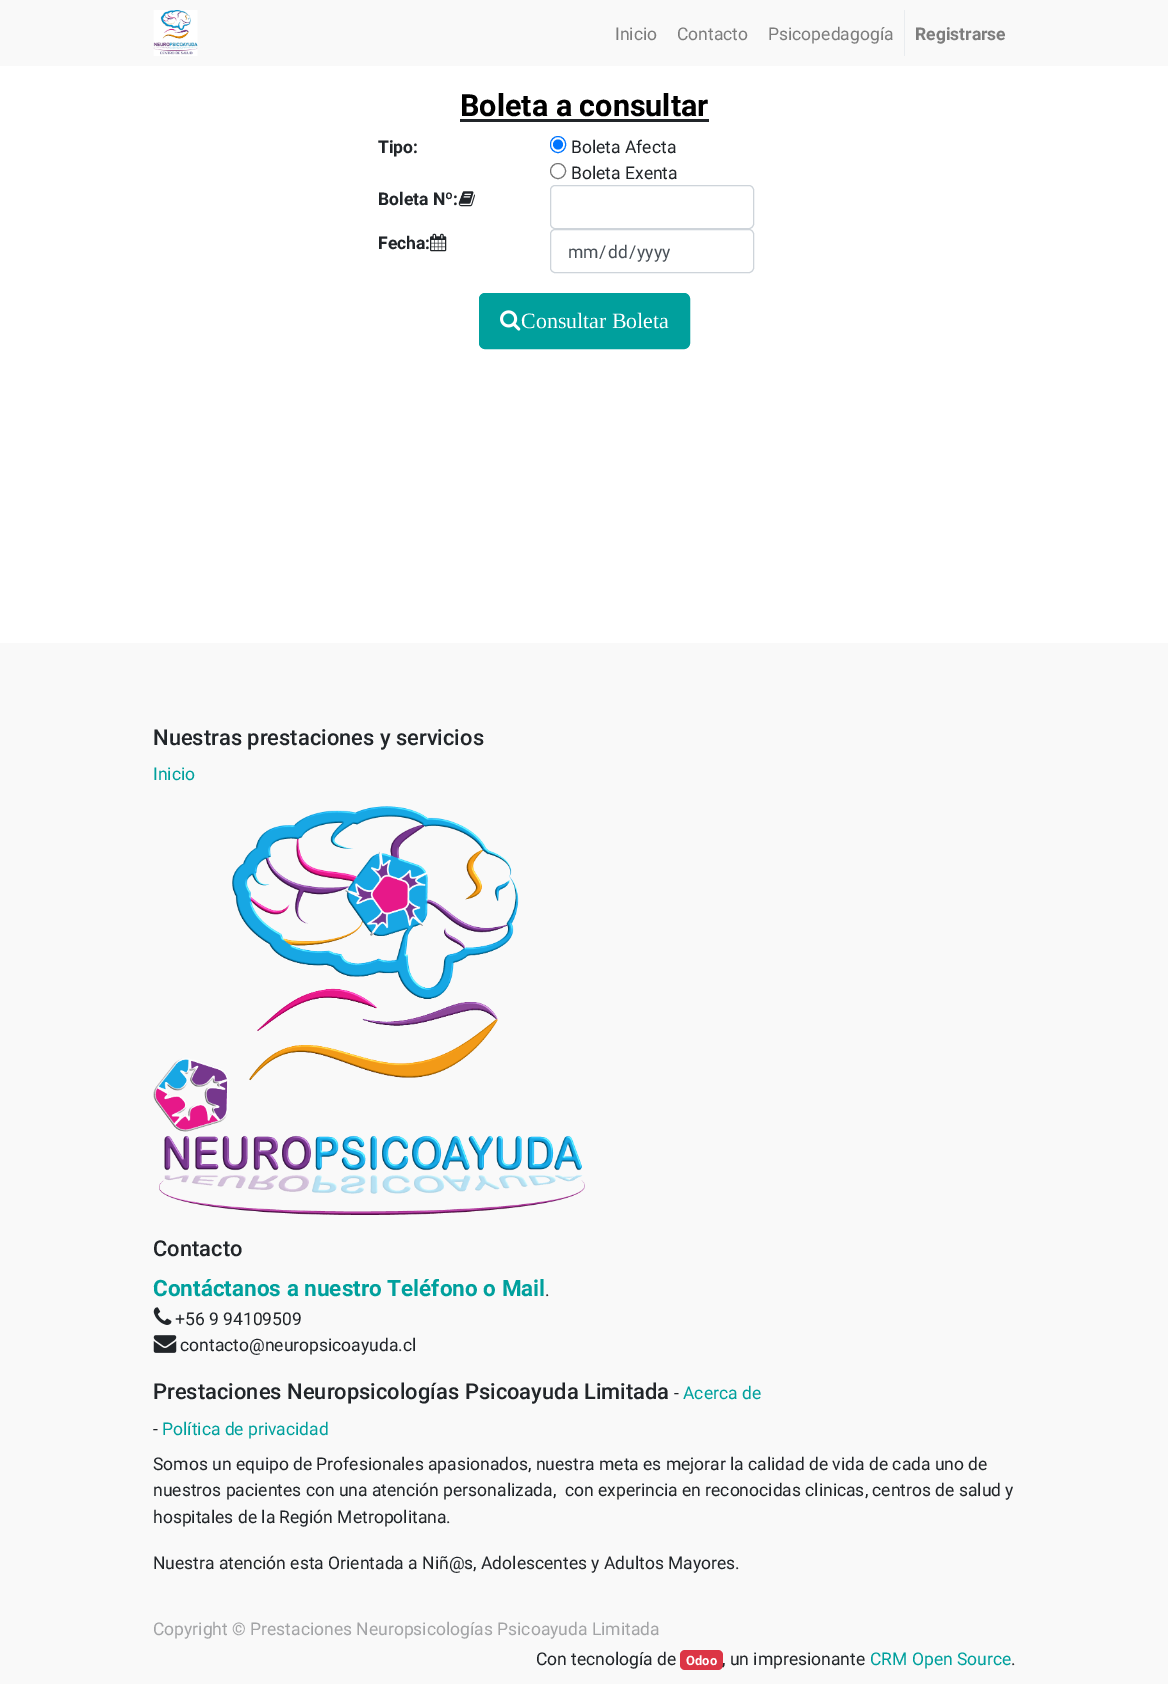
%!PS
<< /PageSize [1168 1684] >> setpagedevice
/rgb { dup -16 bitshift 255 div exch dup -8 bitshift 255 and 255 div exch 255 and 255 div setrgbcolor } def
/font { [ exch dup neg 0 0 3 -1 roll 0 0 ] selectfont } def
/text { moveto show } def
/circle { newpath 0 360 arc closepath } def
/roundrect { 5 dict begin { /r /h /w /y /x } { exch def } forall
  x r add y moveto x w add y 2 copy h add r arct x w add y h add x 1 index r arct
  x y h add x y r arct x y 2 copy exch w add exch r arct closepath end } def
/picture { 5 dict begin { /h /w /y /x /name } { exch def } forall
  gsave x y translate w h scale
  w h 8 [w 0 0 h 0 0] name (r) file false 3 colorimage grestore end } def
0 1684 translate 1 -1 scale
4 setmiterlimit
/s1 { /Roboto-Regular 17.5 font 16#7D7D7D rgb } def
/s2 { /Roboto-Bold 17.5 font 16#7D7D7D rgb } def
/s3 { /Roboto-Bold 30.5 font 16#000000 rgb } def
/s4 { /Roboto-Bold 17.5 font 16#212529 rgb } def
/s5 { /Roboto-Regular 17.5 font 16#212529 rgb } def
/s6 { /Roboto-Regular 17.5 font 16#495057 rgb } def
/s7 { /LiberationSerif-Regular 21.9 font 16#FFFFFF rgb } def
/s8 { /Roboto-Medium 21.9 font 16#212529 rgb } def
/s9 { /Roboto-Regular 17.5 font 16#00A09D rgb } def
/s10 { /Roboto-Bold 22.5 font 16#00A09D rgb } def
/s11 { /Roboto-Regular 17.5 font 16#A3A4A6 rgb } def
/s12 { /Roboto-Bold 13 font 16#FFFFFF rgb } def
16#FFFFFF rgb
0 0 1168 1684 rectfill
16#F9F9F9 rgb
0 0 1168 66 rectfill
(pic1.raw) 153 10 45 46 picture
s1
(Inicio) 615 40 text
(Contacto) 677 40 text
(Psicopedagogía) 768 40 text
16#E9ECEF rgb
904 10 1 46 rectfill
s2
(Registrarse) 915 40 text
s3
(Boleta a consultar) 460 116 text
16#212529 rgb
460 119 249 3 rectfill
s4
(Tipo:) 378 153 text
16#0075FF rgb
550.5 136.5 15 16 7.5 roundrect stroke
558 144.5 5 circle fill
s5
(Boleta Afecta) 571 153 text
16#767676 rgb
558 171 7.5 circle stroke
s5
(Boleta Exenta) 571 179 text
s4
(Boleta Nº:) 378 205 text
(pic2.raw) 458 191 17 16 picture
16#CED4DA rgb
550.5 185.5 203 43 4.5 roundrect stroke
s4
(Fecha:) 378 249 text
(pic3.raw) 430 233 17 19 picture
16#CED4DA rgb
550.5 229.5 203 43 4.5 roundrect stroke
s6
(mm) 568 258 text
(/) 599 258 text
(dd) 608 258 text
(/) 629 258 text
(yyyy) 637 258 text
16#00A09D rgb
479.5 293.5 210 55 5.5 roundrect gsave fill grestore
stroke
(pic4.raw) 500 310 21 21 picture
s7
(Consultar Boleta) 521 328 text
16#F9F9F9 rgb
0 643 1168 1041 rectfill
s8
(Nuestras prestaciones y servicios) 153 745 text
s9
(Inicio) 153 780 text
(pic5.raw) 153 806 432 409 picture
s8
(Contacto) 153 1256 text
s10
(Contáctanos a nuestro Teléfono o Mail) 153 1296 text
s5
(.) 545 1296 text
(pic6.raw) 153 1307 19 18 picture
(+56 9 94109509) 175 1325 text
(pic7.raw) 153 1335 24 18 picture
(contacto@neuropsicoayuda.cl) 180 1351 text
s8
(Prestaciones Neuropsicologías Psicoayuda Limitada) 153 1399 text
s5
(-) 674 1399 text
s9
(Acerca de) 683 1399 text
s5
(-) 153 1435 text
s9
(Política de privacidad) 162 1435 text
s5
(Somos un equipo de Profesionales apasionados, nuestra meta es mejorar la calidad de vida de cada uno de) 153 1470 text
(nuestros pacientes con una atención personalizada,  con experincia en reconocidas clinicas, centros de salud y) 153 1496 text
(hospitales de la Región Metropolitana.) 153 1523 text
(Nuestra atención esta Orientada a Niñ@s, Adolescentes y Adultos Mayores.) 153 1569 text
s11
(Copyright © Prestaciones Neuropsicologías Psicoayuda Limitada) 153 1635 text
s5
(Con tecnología de) 536 1665 text
16#DC3545 rgb
680 1650 43 20 5 roundrect fill
s12
(Odoo) 686 1665 text
s5
(, un impresionante) 722 1665 text
s9
(CRM Open Source) 870 1665 text
s5
(.) 1011 1665 text
showpage
